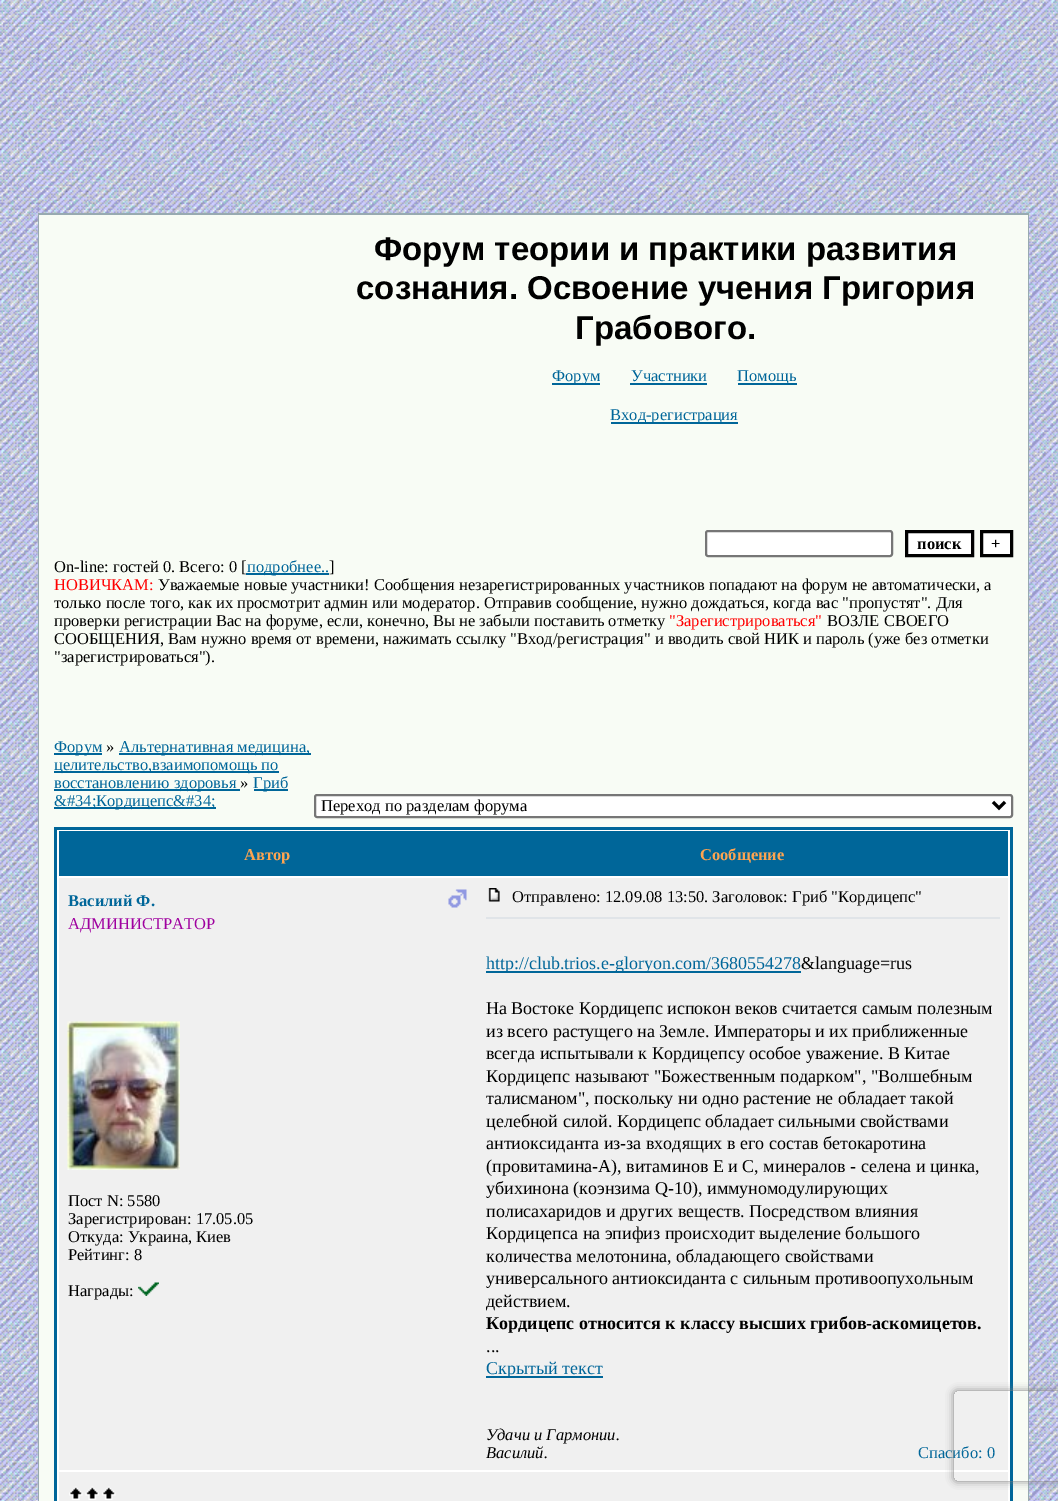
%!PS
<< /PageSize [1058 1501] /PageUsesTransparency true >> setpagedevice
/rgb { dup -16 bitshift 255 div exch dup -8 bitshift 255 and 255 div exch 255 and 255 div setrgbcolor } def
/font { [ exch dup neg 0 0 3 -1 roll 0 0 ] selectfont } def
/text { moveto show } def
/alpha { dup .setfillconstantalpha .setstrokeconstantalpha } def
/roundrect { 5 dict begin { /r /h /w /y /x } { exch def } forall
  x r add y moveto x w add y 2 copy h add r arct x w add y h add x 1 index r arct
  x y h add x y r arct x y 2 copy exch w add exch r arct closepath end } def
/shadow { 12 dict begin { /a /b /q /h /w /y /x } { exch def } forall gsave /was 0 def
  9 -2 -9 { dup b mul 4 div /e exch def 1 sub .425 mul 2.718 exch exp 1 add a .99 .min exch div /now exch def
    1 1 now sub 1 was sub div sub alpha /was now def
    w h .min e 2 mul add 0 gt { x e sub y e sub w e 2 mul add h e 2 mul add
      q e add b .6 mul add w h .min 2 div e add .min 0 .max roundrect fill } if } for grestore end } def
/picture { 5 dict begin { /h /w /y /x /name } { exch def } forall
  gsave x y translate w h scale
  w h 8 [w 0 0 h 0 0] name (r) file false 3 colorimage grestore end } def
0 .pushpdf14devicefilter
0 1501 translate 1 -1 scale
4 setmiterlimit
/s1 { /LiberationSans-Bold 33 font 16#000000 rgb } def
/s2 { /LiberationSerif-Regular 16.5 font 16#006699 rgb } def
/s3 { /LiberationSerif-Bold 16.5 font 16#000000 rgb } def
/s4 { /LiberationSerif-Regular 16.5 font 16#000000 rgb } def
/s5 { /LiberationSerif-Regular 16.5 font 16#FF0000 rgb } def
/s6 { /LiberationSerif-Bold 16.5 font 16#FFA450 rgb } def
/s7 { /LiberationSerif-Bold 16.5 font 16#006699 rgb } def
/s8 { /LiberationSerif-Regular 16.5 font 16#9F009F rgb } def
/s9 { /LiberationSerif-Regular 18 font 16#006699 rgb } def
/s10 { /LiberationSerif-Regular 18 font 16#000000 rgb } def
/s11 { /LiberationSerif-Bold 18 font 16#000000 rgb } def
/s12 { /LiberationSerif-Italic 16.5 font 16#000000 rgb } def
16#FFFFFF rgb
0 0 1058 1501 rectfill
(pic1.raw) 0 0 1058 1501 picture
16#98AAB1 rgb
38 213 991 1288 rectfill
16#F8FCF5 rgb
39 215 989 1286 rectfill
s1
(Форум теории и практики развития) 374 260 text
(сознания. Освоение учения Григория) 356 299 text
(Грабового.) 575 339 text
16#006699 rgb
552 383 48 2 rectfill
s2
(Форум) 552 381 text
(Участники) 631 381 text
630 383 77 2 rectfill
738 383 59 2 rectfill
(Помощь) 737 381 text
611 422 127 2 rectfill
(Вход-регистрация) 610 420 text
16#FFFFFF rgb
706 531 186 25 2 roundrect gsave fill grestore
16#767676 rgb
2 setlinewidth
stroke
16#FFFFFF rgb
906.5 531.5 moveto 972.5 531.5 lineto 972.5 555.5 lineto 906.5 555.5 lineto closepath gsave fill grestore
16#000000 rgb
3 setlinewidth
stroke
s3
(поиск) 917 549 text
16#FFFFFF rgb
981.5 531.5 moveto 1011.5 531.5 lineto 1011.5 555.5 lineto 981.5 555.5 lineto closepath gsave fill grestore
16#000000 rgb
stroke
(+) 991 549 text
s4
(On-line: гостей 0. Всего: 0 [) 54 572 text
16#006699 rgb
246 573 83 2 rectfill
(подробнее..) 247 572 text
s4
(]) 329 572 text
s5
(НОВИЧКАМ:) 54 590 text
s4
(Уважаемые новые участники! Сообщения незарегистрированных участников попадают на форум не автоматически, а) 158 590 text
(только после того, как их просмотрит админ или модератор. Отправив сообщение, нужно дождаться, когда вас "пропустят". Для) 54 608 text
(проверки регистрации Вас на форуме, если, конечно, Вы не забыли поставить отметку) 54 626 text
s5
("Зарегистрироваться") 669 626 text
s4
(ВОЗЛЕ СВОЕГО) 827 626 text
(СООБЩЕНИЯ, Вам нужно время от времени, нажимать ссылку "Вход/регистрация" и вводить свой НИК и пароль \(уже без отметки) 54 644 text
("зарегистрироваться"\).) 54 662 text
16#006699 rgb
54 753 48 2 rectfill
(Форум) 54 752 text
s4
(») 106 752 text
16#006699 rgb
119 753 192 2 rectfill
(Альтернативная медицина,) 119 752 text
54 771 225 2 rectfill
(целительство,взаимопомощь по) 54 770 text
54 789 186 2 rectfill
(восстановлению здоровья) 54 788 text
s4
(») 240 788 text
16#006699 rgb
254 789 34 2 rectfill
(Гриб) 253 788 text
54 807 162 2 rectfill
(&#34;Кордицепс&#34;) 54 806 text
16#FFFFFF rgb
315 795 697 22 2 roundrect gsave fill grestore
16#767676 rgb
2 setlinewidth
stroke
16#000000 rgb
3 setlinewidth
993 802 moveto 999 808 lineto 1005 802 lineto stroke
(Переход по разделам форума) 321 811 text
16#006699 rgb
54 827 959 674 rectfill
16#FFFFFF rgb
57 830 953 671 rectfill
16#006699 rgb
59 831 949 45 rectfill
s6
(Автор) 244 860 text
(Сообщение) 700 860 text
16#F0F0F0 rgb
59 878 949 592 rectfill
s7
(Василий Ф.) 68 906 text
(pic2.raw) 448 889 19 19 picture
s8
(АДМИНИСТРАТОР) 68 929 text
(pic3.raw) 67 1021 113 149 picture
s4
(Пост N: 5580) 68 1206 text
(Зарегистрирован: 17.05.05) 68 1224 text
(Откуда: Украина, Киев) 68 1242 text
(Рейтинг: 8) 68 1260 text
(Награды:) 68 1296 text
(pic4.raw) 138 1282 21 14 picture
(pic5.raw) 488 888 12 14 picture
(Отправлено: 12.09.08 13:50. Заголовок: Гриб "Кордицепс") 512 902 text
16#E0E4E8 rgb
486 917 514 2 rectfill
16#006699 rgb
486 971 315 2 rectfill
s9
(http://club.trios.e-gloryon.com/3680554278) 486 969 text
s10
(&language=rus) 801 969 text
(На Востоке Кордицепс испокон веков считается самым полезным) 486 1014 text
(из всего растущего на Земле. Императоры и их приближенные) 486 1037 text
(всегда испытывали к Кордицепсу особое уважение. В Китае) 486 1059 text
(Кордицепс называют "Божественным подарком", "Волшебным) 486 1082 text
(талисманом", поскольку ни одно растение не обладает такой) 486 1104 text
(целебной силой. Кордицепс обладает сильными свойствами) 486 1127 text
(антиоксиданта из-за входящих в его состав бетокаротина) 486 1149 text
(\(провитамина-А\), витаминов Е и С, минералов - селена и цинка,) 486 1172 text
(убихинона \(коэнзима Q-10\), иммуномодулирующих) 486 1194 text
(полисахаридов и других веществ. Посредством влияния) 486 1217 text
(Кордицепса на эпифиз происходит выделение большого) 486 1239 text
(количества мелотонина, обладающего свойствами) 486 1262 text
(универсального антиоксиданта с сильным противоопухольным) 486 1284 text
(действием.) 486 1307 text
s11
(Кордицепс относится к классу высших грибов-аскомицетов.) 486 1329 text
s10
(...) 486 1352 text
16#006699 rgb
486 1376 117 2 rectfill
(Скрытый текст) 486 1374 text
s12
(Удачи и Гармонии.) 486 1440 text
(Василий.) 486 1458 text
s2
(Спасибо: 0) 918 1458 text
16#F0F0F0 rgb
59 1472 949 29 rectfill
(pic6.raw) 69 1486 47 14 picture
gsave
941 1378 moveto 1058 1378 lineto 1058 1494 lineto 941 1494 lineto closepath 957 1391 moveto 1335 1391 lineto 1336.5 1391 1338 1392.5 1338 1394 curveto 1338 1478 lineto 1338 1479.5 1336.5 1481 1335 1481 curveto 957 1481 lineto 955.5 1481 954 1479.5 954 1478 curveto 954 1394 lineto 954 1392.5 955.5 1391 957 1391 curveto closepath eoclip newpath
16#808080 rgb
954 1391 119 90 3 4 1 shadow
grestore
.poppdf14devicefilter showpage
